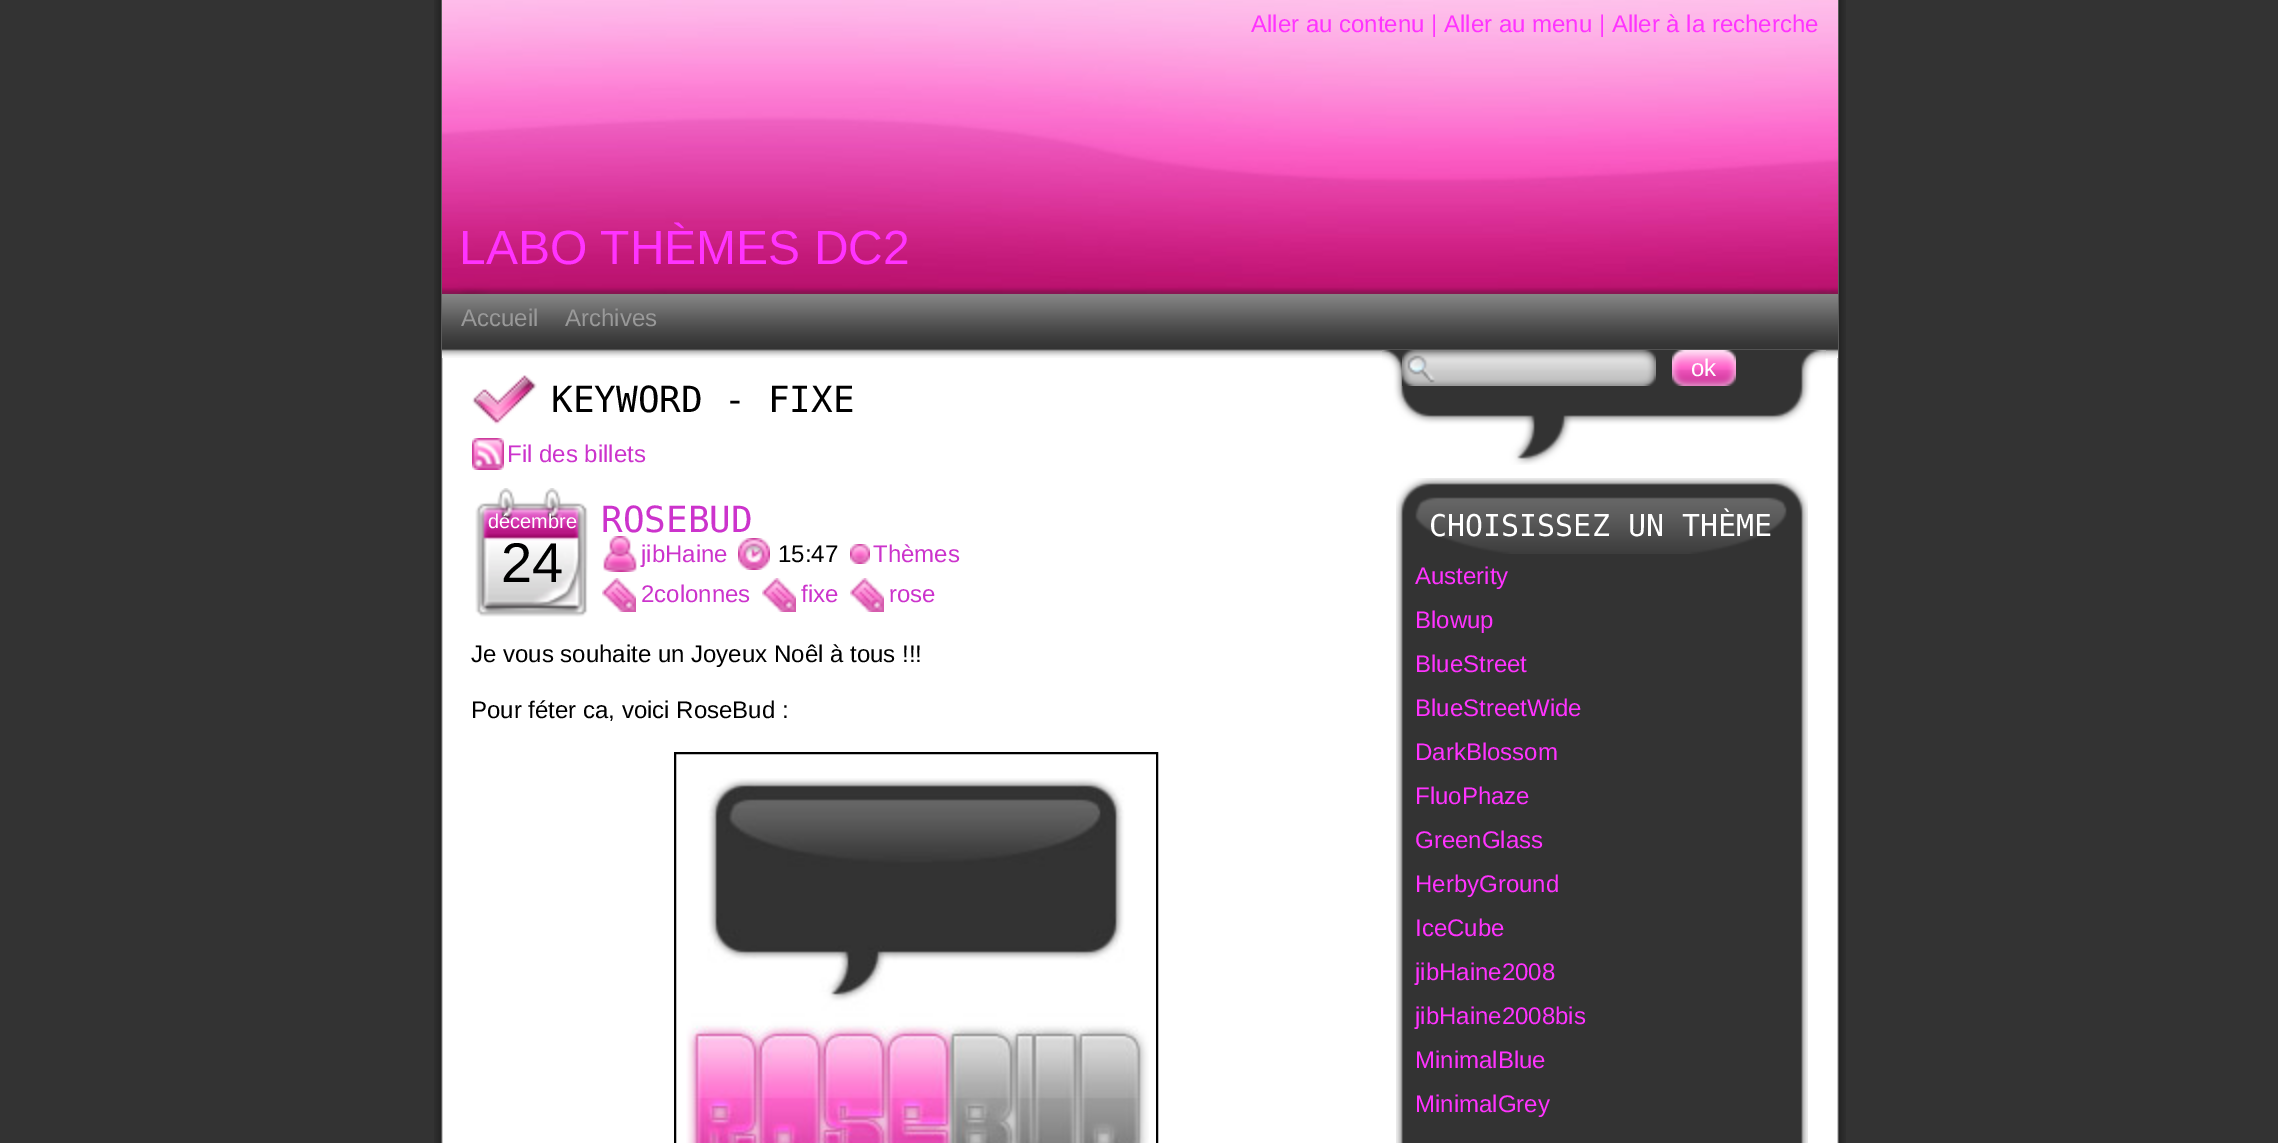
%!PS
<< /PageSize [2278 1143] >> setpagedevice
/rgb { dup -16 bitshift 255 div exch dup -8 bitshift 255 and 255 div exch 255 and 255 div setrgbcolor } def
/font { [ exch dup neg 0 0 3 -1 roll 0 0 ] selectfont } def
/text { moveto show } def
/picture { 5 dict begin { /h /w /y /x /name } { exch def } forall
  gsave x y translate w h scale
  w h 8 [w 0 0 h 0 0] name (r) file false 3 colorimage grestore end } def
0 1143 translate 1 -1 scale
4 setmiterlimit
/s1 { /LiberationSans-Regular 24 font 16#FF33FF rgb } def
/s2 { /LiberationSans-Regular 48 font 16#FF33FF rgb } def
/s3 { /LiberationSans-Regular 24 font 16#999999 rgb } def
/s4 { /DejaVuSansMono-Regular 36 font 16#000000 rgb } def
/s5 { /LiberationSans-Regular 24 font 16#CC33CC rgb } def
/s6 { /LiberationSans-Regular 20 font 16#FFFFFF rgb } def
/s7 { /LiberationSans-Regular 56 font 16#000000 rgb } def
/s8 { /DejaVuSansMono-Regular 36 font 16#CC33CC rgb } def
/s9 { /LiberationSans-Regular 24 font 16#000000 rgb } def
/s10 { /LiberationSans-Regular 24 font 16#FFFFFF rgb } def
/s11 { /DejaVuSansMono-Regular 30 font 16#FFFFFF rgb } def
16#333333 rgb
0 0 2278 1143 rectfill
(pic1.raw) 434 0 1412 1143 picture
(pic2.raw) 442 0 1396 294 picture
s1
(Aller au contenu | Aller au menu | Aller à la recherche) 1251 32 text
s2
(LABO THÈMES DC2) 459 264 text
(pic3.raw) 442 294 1396 64 picture
s3
(Accueil) 461 326 text
(Archives) 565 326 text
(pic4.raw) 472 375 65 50 picture
s4
(KEYWORD - FIXE) 551 412 text
(pic5.raw) 472 438 32 32 picture
s5
(Fil des billets) 507 462 text
(pic6.raw) 475 488 113 129 picture
s6
(décembre) 488 528 text
s7
(24) 501 582 text
s8
(ROSEBUD) 601 532 text
(pic7.raw) 603 536 34 36 picture
s5
(jibHaine) 641 562 text
(pic8.raw) 738 538 32 32 picture
s9
(15:47) 778 562 text
(pic9.raw) 850 544 20 20 picture
s5
(Thèmes) 873 562 text
(pic10.raw) 602 578 34 34 picture
(2colonnes) 641 602 text
(pic10.raw) 762 578 34 34 picture
(fixe) 801 602 text
(pic10.raw) 850 578 34 34 picture
(rose) 889 602 text
s9
(Je vous souhaite un Joyeux Noêl à tous !!!) 471 662 text
(Pour féter ca, voici RoseBud :) 471 718 text
2 setlinewidth
675 753 482 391 rectstroke
(pic11.raw) 686 778 463 365 picture
(pic12.raw) 1396 554 412 589 picture
(pic13.raw) 1382 350 444 115 picture
(pic14.raw) 1402 350 254 36 picture
(pic15.raw) 1672 350 64 36 picture
s10
(ok) 1691 376 text
(pic16.raw) 1396 478 412 76 picture
s11
(CHOISISSEZ UN THÈME) 1429 536 text
s1
(Austerity) 1415 584 text
(Blowup) 1415 628 text
(BlueStreet) 1415 672 text
(BlueStreetWide) 1415 716 text
(DarkBlossom) 1415 760 text
(FluoPhaze) 1415 804 text
(GreenGlass) 1415 848 text
(HerbyGround) 1415 892 text
(IceCube) 1415 936 text
(jibHaine2008) 1415 980 text
(jibHaine2008bis) 1415 1024 text
(MinimalBlue) 1415 1068 text
(MinimalGrey) 1415 1112 text
showpage
